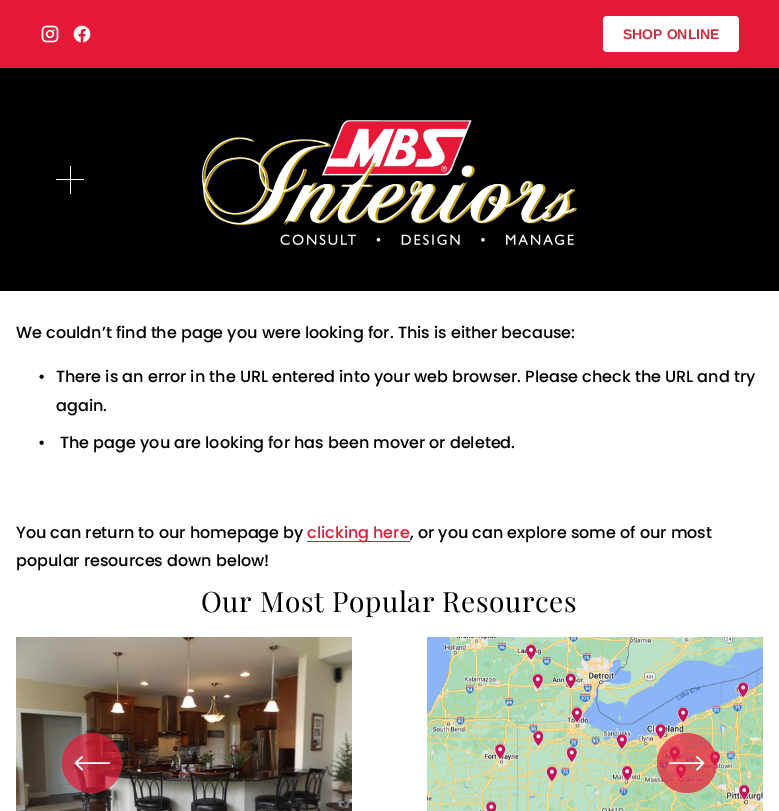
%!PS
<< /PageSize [779 811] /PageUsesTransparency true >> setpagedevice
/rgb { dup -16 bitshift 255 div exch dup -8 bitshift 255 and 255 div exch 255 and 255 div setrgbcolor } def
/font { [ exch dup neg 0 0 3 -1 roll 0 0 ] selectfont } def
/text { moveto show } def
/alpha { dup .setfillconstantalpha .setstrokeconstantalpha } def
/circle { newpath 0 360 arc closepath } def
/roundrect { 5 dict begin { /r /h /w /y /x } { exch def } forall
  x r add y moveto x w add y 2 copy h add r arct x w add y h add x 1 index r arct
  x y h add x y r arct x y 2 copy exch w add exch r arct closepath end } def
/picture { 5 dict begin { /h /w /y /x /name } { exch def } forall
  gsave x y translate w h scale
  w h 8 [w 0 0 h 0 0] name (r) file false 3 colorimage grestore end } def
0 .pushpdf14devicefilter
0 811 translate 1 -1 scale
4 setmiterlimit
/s1 { /LiberationSans-Bold 14 font 16#CC2F3E rgb } def
/s2 { /Poppins-Medium 16 font 16#000000 rgb } def
/s3 { /Poppins-Medium 16 font 16#E51937 rgb } def
16#FFFFFF rgb
0 0 779 811 rectfill
16#E51937 rgb
0 0 779 68 rectfill
(pic1.raw) 41 25 18 18 picture
(pic2.raw) 73 25 18 18 picture
16#FFFFFF rgb
603 16 136 36 4 roundrect fill
s1
(SHOP ONLINE) 623 39 text
16#000000 rgb
0 68 779 223 rectfill
16#FFFFFF rgb
56 179 28 1 rectfill
70 166 1 28 rectfill
(pic3.raw) 202 120 375 125 picture
s2
(We couldn’t find the page you were looking for. This is either because:) 16 338 text
(•) 38 382 text
(There is an error in the URL entered into your web browser. Please check the URL and try) 56 382 text
(again.) 56 411 text
(•) 38 448 text
(The page you are looking for has been mover or deleted.) 60 448 text
(You can return to our homepage by) 16 538 text
16#E51937 rgb
307 541 103 1 rectfill
(clicking here) 307 538 text
s2
(, or you can explore some of our most) 410 538 text
(popular resources down below!) 16 566 text
/PlayfairDisplay-Regular 28.1 font
201 612 moveto 0.55 0 (Our Most Popular Resources) ashow
(pic4.raw) 16 637 336 174 picture
(pic5.raw) 427 637 336 174 picture
0.7 alpha
16#E51937 rgb
92 763 30 circle fill
1 alpha
16#FFFFFF rgb
1.6 setlinewidth
1 setlinecap
1 setlinejoin
82 769.5 moveto 75.5 763 lineto 82 757 lineto 109 763 moveto 77 763 lineto stroke
0.7 alpha
16#E51937 rgb
687 763 30 circle fill
1 alpha
16#FFFFFF rgb
697 757 moveto 703.5 763 lineto 697 769.5 lineto 670 763 moveto 702.5 763 lineto stroke
.poppdf14devicefilter showpage
